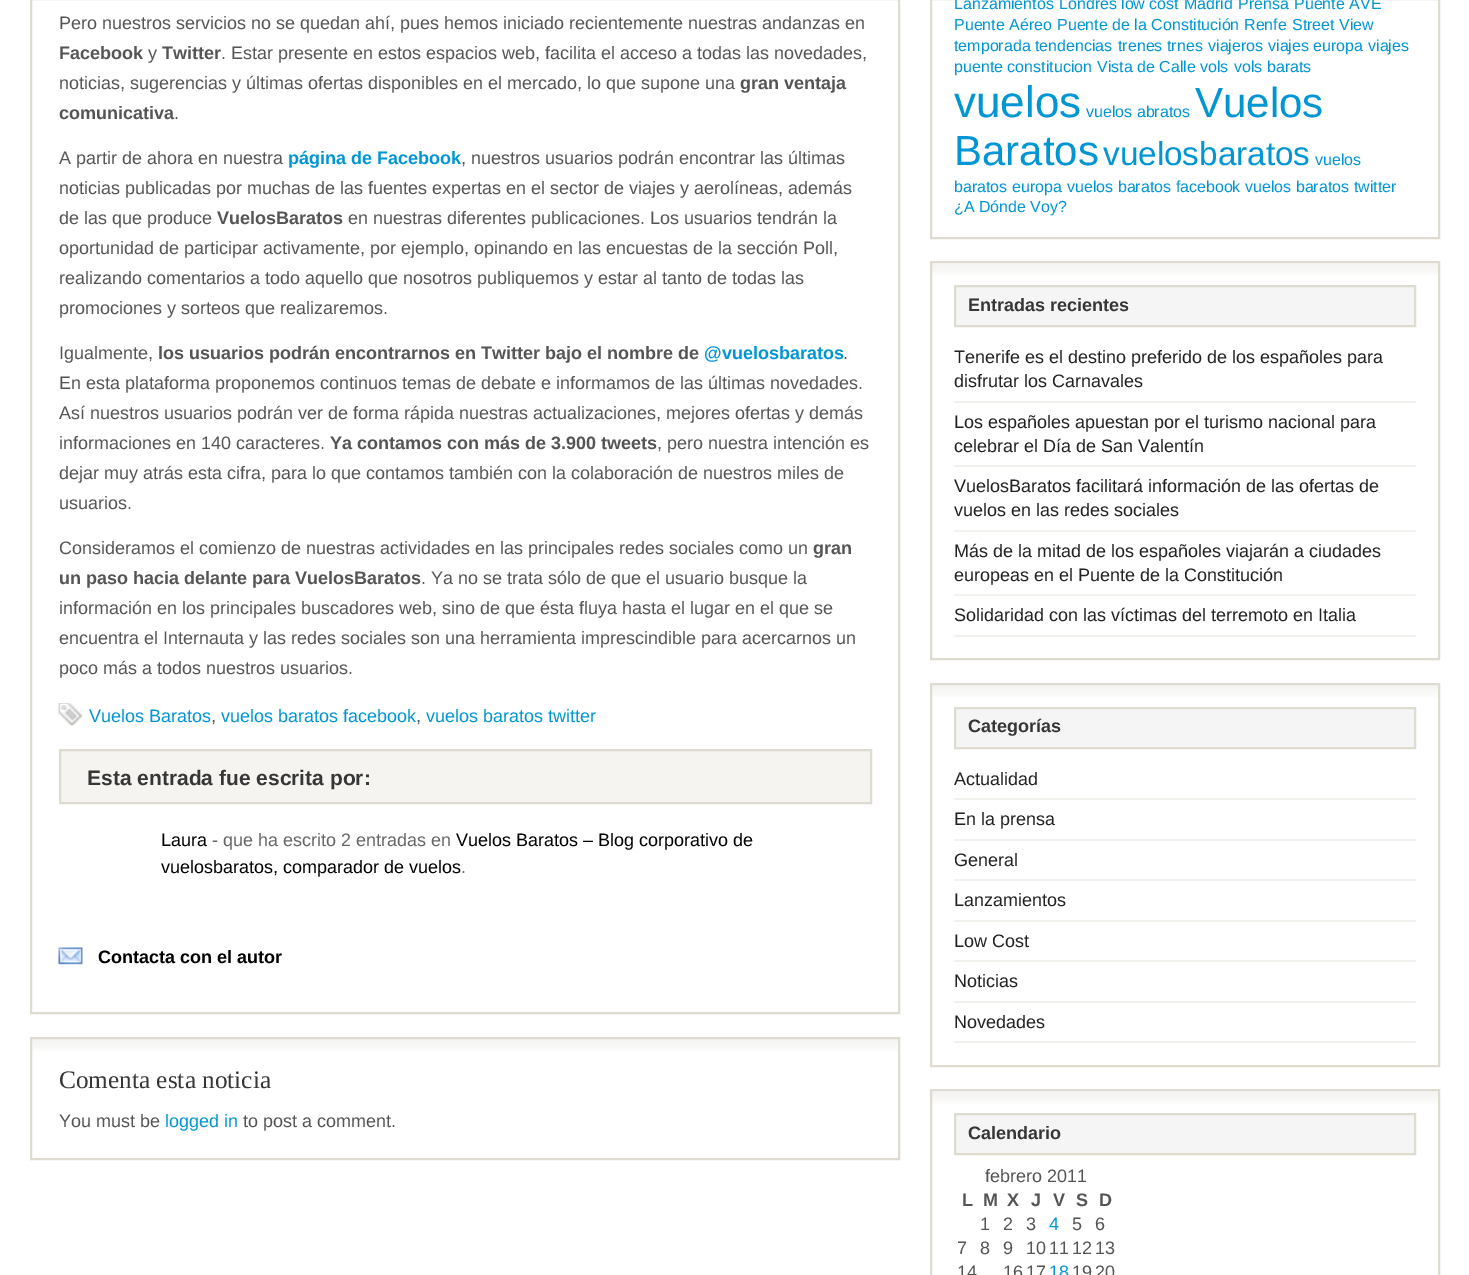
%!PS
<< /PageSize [1469 1275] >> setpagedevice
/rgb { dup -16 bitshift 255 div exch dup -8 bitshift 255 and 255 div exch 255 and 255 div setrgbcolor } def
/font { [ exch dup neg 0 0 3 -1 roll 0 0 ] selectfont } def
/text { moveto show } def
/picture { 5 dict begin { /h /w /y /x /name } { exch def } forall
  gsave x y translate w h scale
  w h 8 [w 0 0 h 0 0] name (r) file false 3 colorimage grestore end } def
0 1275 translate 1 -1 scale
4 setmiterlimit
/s1 { /LiberationSans-Regular 18 font 16#555555 rgb } def
/s2 { /LiberationSans-Bold 18 font 16#555555 rgb } def
/s3 { /LiberationSans-Bold 18 font 16#0095D3 rgb } def
/s4 { /LiberationSans-Regular 18 font 16#0095D3 rgb } def
/s5 { /LiberationSans-Bold 21 font 16#363636 rgb } def
/s6 { /LiberationSans-Regular 18 font 16#000000 rgb } def
/s7 { /LiberationSans-Regular 18 font 16#666666 rgb } def
/s8 { /LiberationSans-Bold 18 font 16#000000 rgb } def
/s9 { /LiberationSerif-Regular 25.25 font 16#363636 rgb } def
/s10 { /LiberationSans-Regular 16 font 16#0095D3 rgb } def
/s11 { /LiberationSans-Regular 44 font 16#0095D3 rgb } def
/s12 { /LiberationSans-Regular 42 font 16#0095D3 rgb } def
/s13 { /LiberationSans-Regular 33.25 font 16#0095D3 rgb } def
/s14 { /LiberationSans-Bold 18 font 16#363636 rgb } def
/s15 { /LiberationSans-Regular 18 font 16#222222 rgb } def
16#FFFFFF rgb
0 0 1469 1275 rectfill
16#DEDBD1 rgb
2 setlinewidth
31 -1 868 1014 rectstroke
s1
(Pero nuestros servicios no se quedan ahí, pues hemos iniciado recientemente nuestras andanzas en) 59 29 text
s2
(Facebook) 59 59 text
s1
(y) 148 59 text
s2
(Twitter) 162 59 text
s1
(. Estar presente en estos espacios web, facilita el acceso a todas las novedades,) 221 59 text
(noticias, sugerencias y últimas ofertas disponibles en el mercado, lo que supone una) 59 89 text
s2
(gran ventaja) 740 89 text
(comunicativa) 59 119 text
s1
(.) 174 119 text
(A partir de ahora en nuestra) 59 164 text
s3
(página de Facebook) 288 164 text
s1
(, nuestros usuarios podrán encontrar las últimas) 461 164 text
(noticias publicadas por muchas de las fuentes expertas en el sector de viajes y aerolíneas, además) 59 194 text
(de las que produce) 59 224 text
s2
(VuelosBaratos) 217 224 text
s1
(en nuestras diferentes publicaciones. Los usuarios tendrán la) 348 224 text
(oportunidad de participar activamente, por ejemplo, opinando en las encuestas de la sección Poll,) 59 254 text
(realizando comentarios a todo aquello que nosotros publiquemos y estar al tanto de todas las) 59 284 text
(promociones y sorteos que realizaremos.) 59 314 text
(Igualmente,) 59 359 text
s2
(los usuarios podrán encontrarnos en Twitter bajo el nombre de) 158 359 text
s3
(@vuelosbaratos) 704 359 text
s1
(.) 843 359 text
(En esta plataforma proponemos continuos temas de debate e informamos de las últimas novedades.) 59 389 text
(Así nuestros usuarios podrán ver de forma rápida nuestras actualizaciones, mejores ofertas y demás) 59 419 text
(informaciones en 140 caracteres.) 59 449 text
s2
(Ya contamos con más de 3.900 tweets) 330 449 text
s1
(, pero nuestra intención es) 657 449 text
(dejar muy atrás esta cifra, para lo que contamos también con la colaboración de nuestros miles de) 59 479 text
(usuarios.) 59 509 text
(Consideramos el comienzo de nuestras actividades en las principales redes sociales como un) 59 554 text
s2
(gran) 813 554 text
(un paso hacia delante para VuelosBaratos) 59 584 text
s1
(. Ya no se trata sólo de que el usuario busque la) 421 584 text
(información en los principales buscadores web, sino de que ésta fluya hasta el lugar en el que se) 59 614 text
(encuentra el Internauta y las redes sociales son una herramienta imprescindible para acercarnos un) 59 644 text
(poco más a todos nuestros usuarios.) 59 674 text
(pic1.raw) 58 703 25 23 picture
s4
(Vuelos Baratos) 89 722 text
s1
(,) 211 722 text
s4
(vuelos baratos facebook) 221 722 text
s1
(,) 416 722 text
s4
(vuelos baratos twitter) 426 722 text
16#F5F4F0 rgb
60 750 moveto 871 750 lineto 871 803 lineto 60 803 lineto closepath gsave fill grestore
16#DEDBD1 rgb
stroke
s5
(Esta entrada fue escrita por:) 87 785 text
s6
(Laura) 161 846 text
s7
(- que ha escrito 2 entradas en) 212 846 text
s6
(Vuelos Baratos – Blog corporativo de) 456 846 text
(vuelosbaratos, comparador de vuelos) 161 873 text
s7
(.) 461 873 text
(pic2.raw) 58 947 25 18 picture
s8
(Contacta con el autor) 98 963 text
(pic3.raw) 32 1039 866 12 picture
16#DEDBD1 rgb
31 1038 868 121 rectstroke
s9
(Comenta esta noticia) 59 1088 text
s1
(You must be) 59 1127 text
s4
(logged in) 165 1127 text
s1
(to post a comment.) 243 1127 text
16#DEDBD1 rgb
931 -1 508 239 rectstroke
s10
(Lanzamientos) 954 9 text
(Londres) 1059 9 text
(low cost) 1121 9 text
(Madrid) 1184 9 text
(Prensa) 1238 9 text
(Puente AVE) 1294 9 text
(Puente Aéreo) 954 30 text
(Puente de la Constitución) 1057 30 text
(Renfe) 1244 30 text
(Street View) 1292 30 text
(temporada) 954 51 text
(tendencias) 1035 51 text
(trenes) 1118 51 text
(trnes) 1167 51 text
(viajeros) 1208 51 text
(viajes europa) 1268 51 text
(viajes) 1368 51 text
(puente constitucion) 954 72 text
(Vista de Calle) 1097 72 text
(vols) 1200 72 text
(vols barats) 1234 72 text
s11
(vuelos) 954 117 text
s10
(vuelos abratos) 1086 117 text
s12
(Vuelos) 1195 117 text
(Baratos) 954 165 text
s13
(vuelosbaratos) 1103 165 text
s10
(vuelos) 1315 165 text
(baratos europa) 954 192 text
(vuelos baratos facebook) 1067 192 text
(vuelos baratos twitter) 1245 192 text
(¿A Dónde Voy?) 954 212 text
(pic4.raw) 932 263 506 13 picture
16#DEDBD1 rgb
931 262 508 397 rectstroke
16#F5F5F5 rgb
955 286 moveto 1415 286 lineto 1415 326 lineto 955 326 lineto closepath gsave fill grestore
16#DEDBD1 rgb
stroke
s14
(Entradas recientes) 968 311 text
16#F1F1ED rgb
954 401 462 2 rectfill
s15
(Tenerife es el destino preferido de los españoles para) 954 363 text
(disfrutar los Carnavales) 954 387 text
16#F1F1ED rgb
954 465 462 2 rectfill
s15
(Los españoles apuestan por el turismo nacional para) 954 428 text
(celebrar el Día de San Valentín) 954 452 text
16#F1F1ED rgb
954 530 462 2 rectfill
s15
(VuelosBaratos facilitará información de las ofertas de) 954 492 text
(vuelos en las redes sociales) 954 516 text
16#F1F1ED rgb
954 594 462 2 rectfill
s15
(Más de la mitad de los españoles viajarán a ciudades) 954 557 text
(europeas en el Puente de la Constitución) 954 581 text
16#F1F1ED rgb
954 635 462 2 rectfill
s15
(Solidaridad con las víctimas del terremoto en Italia) 954 621 text
(pic5.raw) 932 685 506 12 picture
16#DEDBD1 rgb
931 684 508 382 rectstroke
16#F5F5F5 rgb
955 708 moveto 1415 708 lineto 1415 748 lineto 955 748 lineto closepath gsave fill grestore
16#DEDBD1 rgb
stroke
s14
(Categorías) 968 732 text
16#F1F1ED rgb
954 798 462 2 rectfill
s15
(Actualidad) 954 785 text
16#F1F1ED rgb
954 839 462 2 rectfill
s15
(En la prensa) 954 825 text
16#F1F1ED rgb
954 879 462 2 rectfill
s15
(General) 954 866 text
16#F1F1ED rgb
954 920 462 2 rectfill
s15
(Lanzamientos) 954 906 text
16#F1F1ED rgb
954 960 462 2 rectfill
s15
(Low Cost) 954 947 text
16#F1F1ED rgb
954 1001 462 2 rectfill
s15
(Noticias) 954 987 text
16#F1F1ED rgb
954 1041 462 2 rectfill
s15
(Novedades) 954 1028 text
(pic4.raw) 932 1091 506 13 picture
16#DEDBD1 rgb
931 1090 508 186 rectstroke
16#F5F5F5 rgb
955 1114 moveto 1415 1114 lineto 1415 1154 lineto 955 1154 lineto closepath gsave fill grestore
16#DEDBD1 rgb
stroke
s14
(Calendario) 968 1139 text
s1
(febrero 2011) 985 1182 text
s2
(L) 962 1206 text
(M) 983 1206 text
(X) 1007 1206 text
(J) 1031 1206 text
(V) 1053 1206 text
(S) 1076 1206 text
(D) 1099 1206 text
s1
(1) 980 1230 text
(2) 1003 1230 text
(3) 1026 1230 text
s4
(4) 1049 1230 text
s1
(5) 1072 1230 text
(6) 1095 1230 text
(7) 957 1254 text
(8) 980 1254 text
(9) 1003 1254 text
(10) 1026 1254 text
(11) 1049 1254 text
(12) 1072 1254 text
(13) 1095 1254 text
(14) 957 1278 text
(16) 1003 1278 text
(17) 1026 1278 text
s4
(18) 1049 1278 text
s1
(19) 1072 1278 text
(20) 1095 1278 text
showpage
